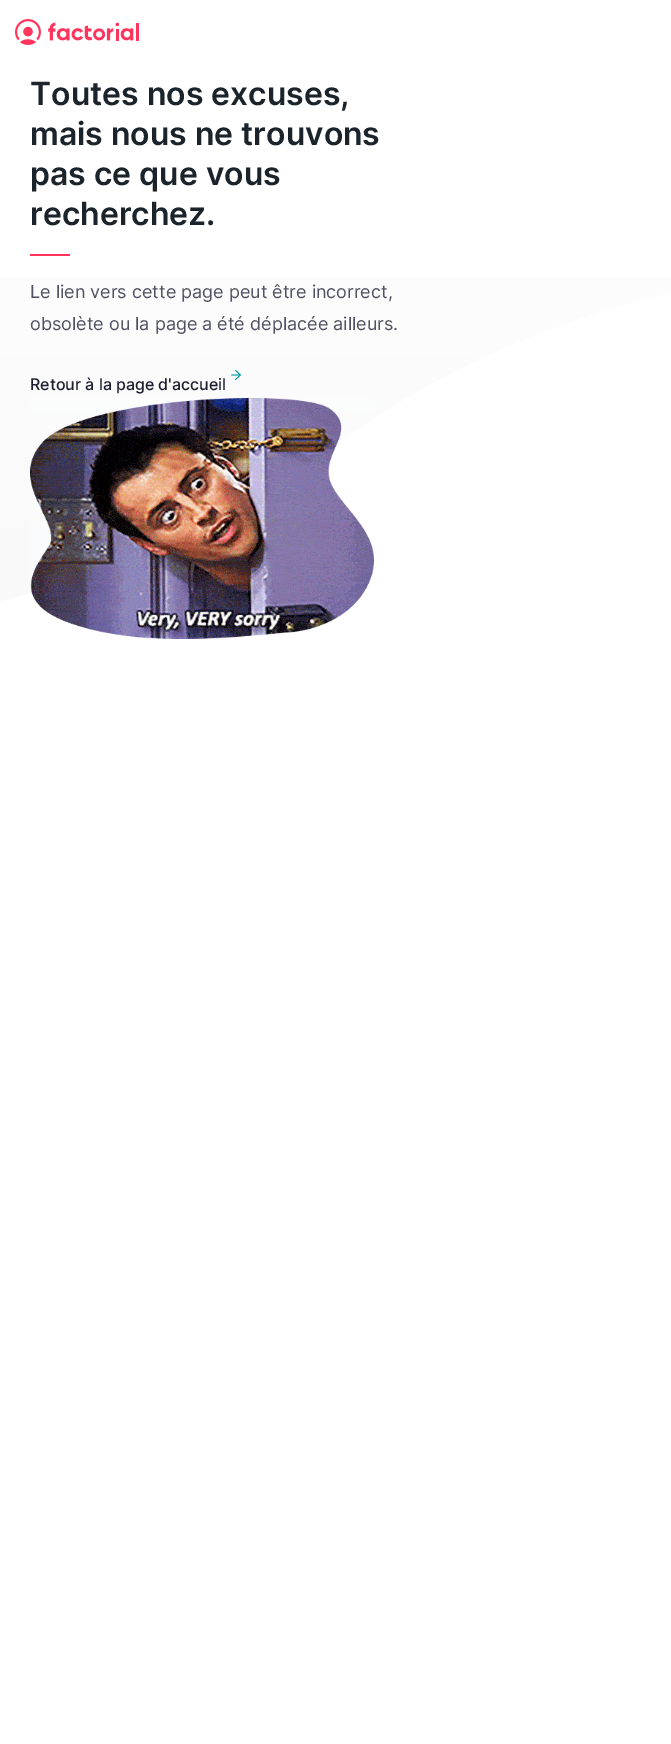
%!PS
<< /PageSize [671 1744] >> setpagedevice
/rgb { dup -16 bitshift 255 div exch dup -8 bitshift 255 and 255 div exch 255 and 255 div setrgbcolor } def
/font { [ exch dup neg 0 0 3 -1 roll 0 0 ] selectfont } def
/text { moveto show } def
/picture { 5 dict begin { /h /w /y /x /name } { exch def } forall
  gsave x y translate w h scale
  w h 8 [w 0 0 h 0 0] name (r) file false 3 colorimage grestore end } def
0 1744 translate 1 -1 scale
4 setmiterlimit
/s1 { /Inter-SemiBold 32 font 16#1C242B rgb } def
/s2 { /Inter-Regular 18 font 16#515164 rgb } def
/s3 { /Inter-Medium 16 font 16#1E1E31 rgb } def
16#FFFFFF rgb
0 0 671 1744 rectfill
(pic1.raw) 15 19 124 26 picture
gsave 0 277 moveto 671 277 lineto 671 602 lineto 0 602 lineto closepath clip newpath
<< /ShadingType 2 /ColorSpace /DeviceRGB /Coords [336 659 336 64] /Extend [true true] /Function << /FunctionType 2 /Domain [0 1] /C0 [0.973 0.976 0.98] /C1 [1 1 1] /N 1 >> >> shfill grestore
s1
(Toutes nos excuses,) 30 105 text
(mais nous ne trouvons) 30 145 text
(pas ce que vous) 30 185 text
(recherchez.) 30 225 text
16#FF355E rgb
30 254 40 2 rectfill
16#FFFFFF rgb
-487 661 moveto 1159 661 lineto 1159 281 lineto 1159 281 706 178 336 444 curveto -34 710 -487 638 -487 638 curveto closepath eofill
s2
(Le lien vers cette page peut être incorrect,) 30 298 text
(obsolète ou la page a été déplacée ailleurs.) 30 330 text
(pic2.raw) 231 370 10 10 picture
s3
(Retour à la page d'accueil) 30 390 text
(pic3.raw) 30 398 344 241 picture
showpage
